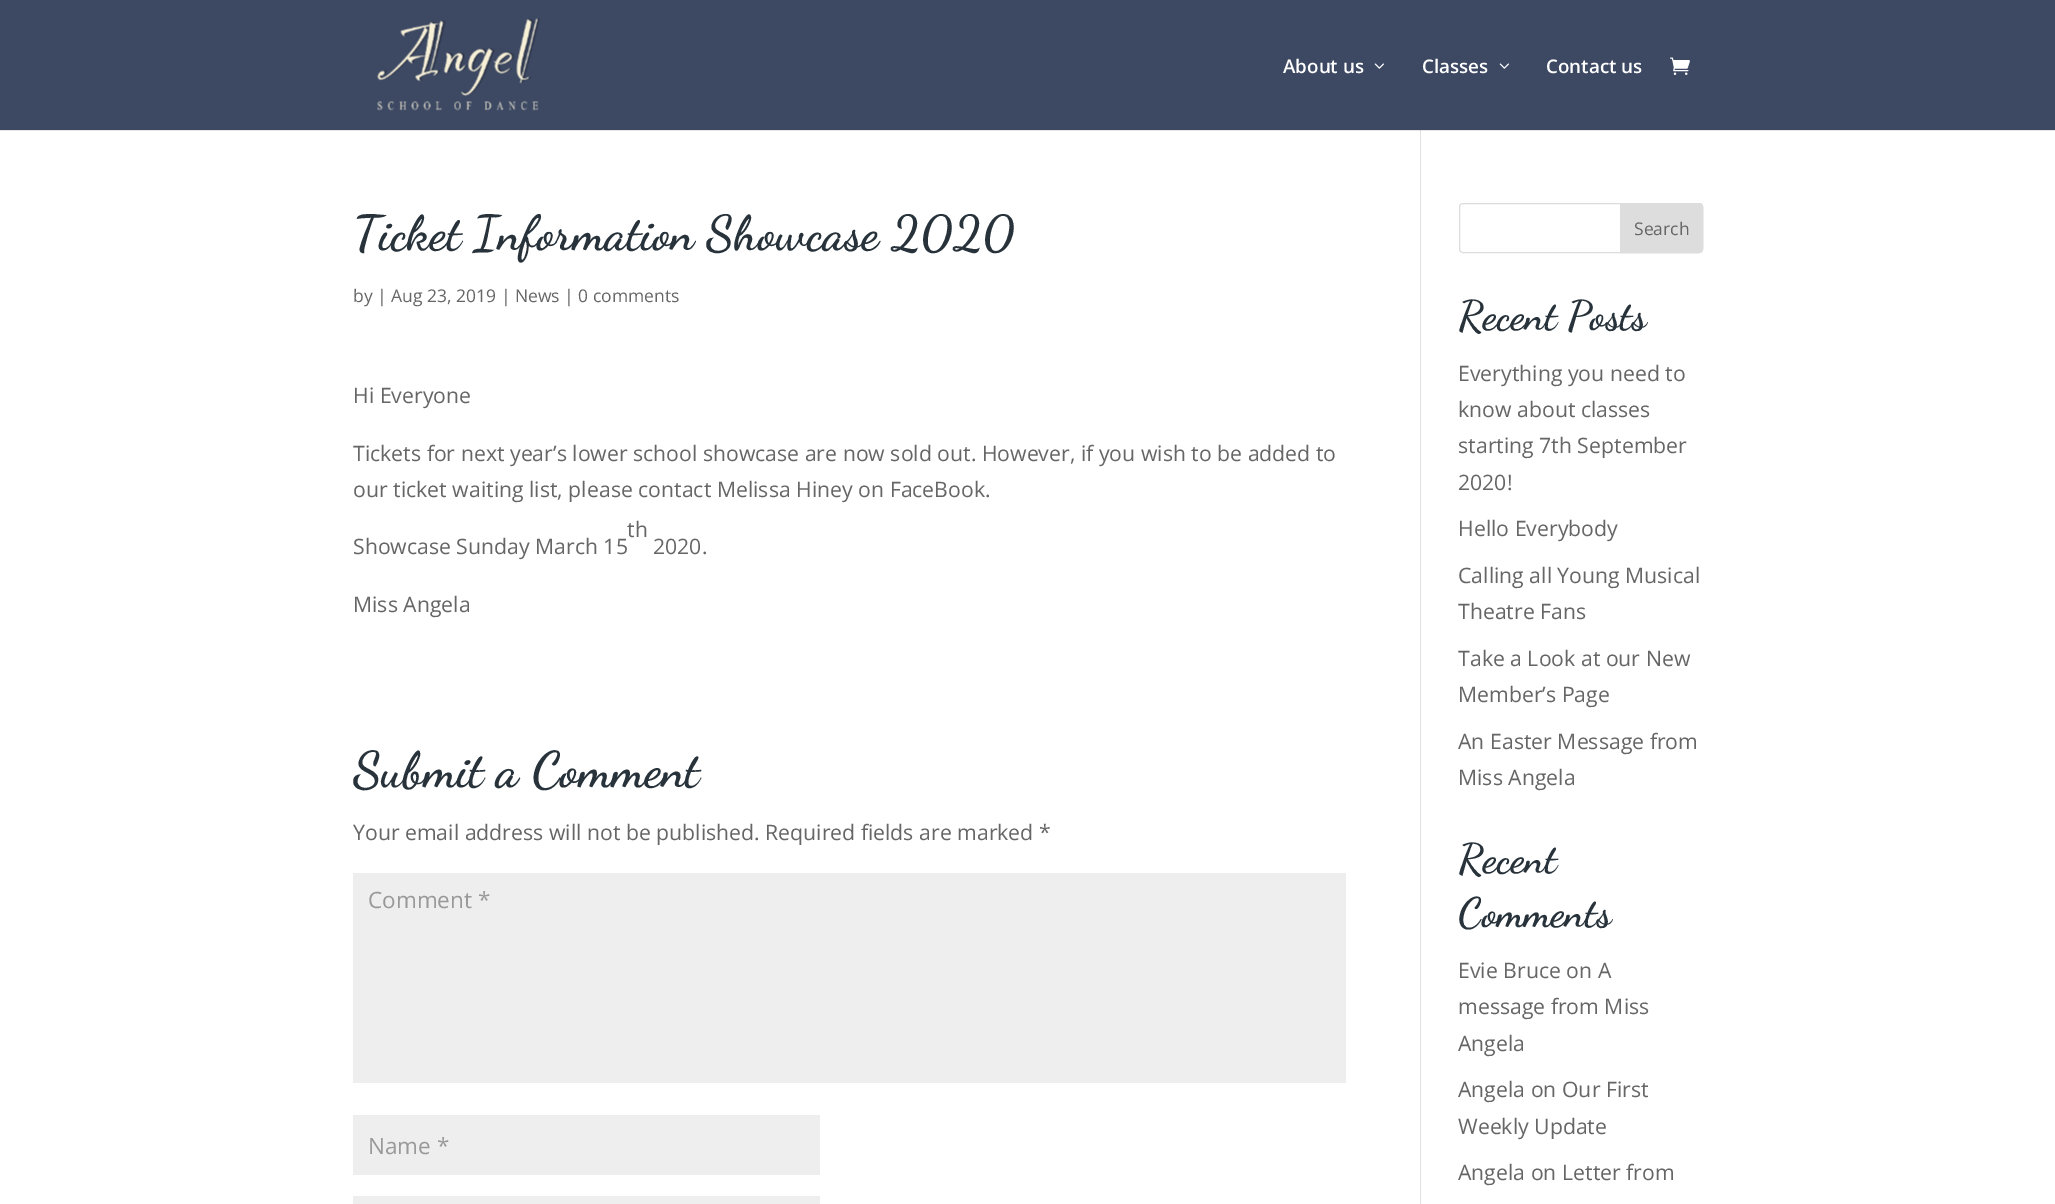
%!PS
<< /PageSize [2055 1204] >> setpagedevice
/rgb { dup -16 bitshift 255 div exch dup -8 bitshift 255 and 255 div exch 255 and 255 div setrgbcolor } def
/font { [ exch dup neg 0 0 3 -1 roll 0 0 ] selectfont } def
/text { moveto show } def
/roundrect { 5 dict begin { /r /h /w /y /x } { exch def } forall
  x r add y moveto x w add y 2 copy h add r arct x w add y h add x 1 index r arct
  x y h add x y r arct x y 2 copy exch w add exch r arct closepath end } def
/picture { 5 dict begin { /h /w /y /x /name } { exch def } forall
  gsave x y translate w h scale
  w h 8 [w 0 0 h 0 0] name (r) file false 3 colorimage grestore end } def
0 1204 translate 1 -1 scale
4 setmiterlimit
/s1 { /OpenSans-SemiBold 18.75 font 16#FFFFFF rgb } def
/s2 { /DancingScript-Bold 48.75 font 16#27323A rgb } def
/s3 { /OpenSans-Regular 17.5 font 16#666666 rgb } def
/s4 { /OpenSans-Regular 21.25 font 16#666666 rgb } def
/s5 { /DancingScript-Bold 50 font 16#27323A rgb } def
/s6 { /OpenSans-Regular 22.5 font 16#999999 rgb } def
/s7 { /DancingScript-Bold 41.25 font 16#27323A rgb } def
16#FFFFFF rgb
0 0 2055 1204 rectfill
16#E6E6E6 rgb
0 130 2055 1 rectfill
16#3D4963 rgb
0 0 2055 130 rectfill
(pic1.raw) 377 18 163 93 picture
s1
(About us) 1283 73 text
(pic2.raw) 1374 63 10 6 picture
(Classes) 1422 73 text
(pic2.raw) 1499 63 10 6 picture
(Contact us) 1546 73 text
(pic3.raw) 1670 57 20 18 picture
16#E2E2E2 rgb
1420 130 1 1074 rectfill
16#CBCBCB rgb
1420 130 1 1 rectfill
s2
(Ticket Information Showcase 2020) 353 249 text
s3
(by | Aug 23, 2019 | News | 0 comments) 353 302 text
s4
(Hi Everyone) 353 403 text
(Tickets for next year’s lower school showcase are now sold out. However, if you wish to be added to) 353 461 text
(our ticket waiting list, please contact Melissa Hiney on FaceBook.) 353 497 text
(th) 627 537 text
(Showcase Sunday March 15) 353 554 text
(2020.) 653 554 text
(Miss Angela) 353 612 text
s5
(Submit a Comment) 353 786 text
s4
(Your email address will not be published. Required fields are marked *) 353 840 text
16#EEEEEE rgb
353 873 993 210 rectfill
s6
(Comment *) 368 908 text
16#EEEEEE rgb
353 1115 467 60 rectfill
s6
(Name *) 368 1154 text
16#EEEEEE rgb
353 1196 467 8 rectfill
16#DDDDDD rgb
1459.5 203.5 243 49 3.5 roundrect stroke
1620.5 203.5 moveto 1699 203.5 lineto 1701 203.5 1702.5 205 1702.5 207 curveto 1702.5 249 lineto 1702.5 251 1701 252.5 1699 252.5 curveto 1620.5 252.5 lineto closepath gsave fill grestore
stroke
s3
(Search) 1634 235 text
s7
(Recent Posts) 1458 329 text
s4
(Everything you need to) 1458 381 text
(know about classes) 1458 417 text
(starting 7th September) 1458 453 text
(2020!) 1458 490 text
(Hello Everybody) 1458 536 text
(Calling all Young Musical) 1458 583 text
(Theatre Fans) 1458 619 text
(Take a Look at our New) 1458 666 text
(Member’s Page) 1458 702 text
(An Easter Message from) 1458 749 text
(Miss Angela) 1458 785 text
s7
(Recent) 1458 872 text
(Comments) 1458 926 text
s4
(Evie Bruce on A) 1458 978 text
(message from Miss) 1458 1014 text
(Angela) 1458 1051 text
(Angela on Our First) 1458 1097 text
(Weekly Update) 1458 1134 text
(Angela on Letter from) 1458 1180 text
showpage
